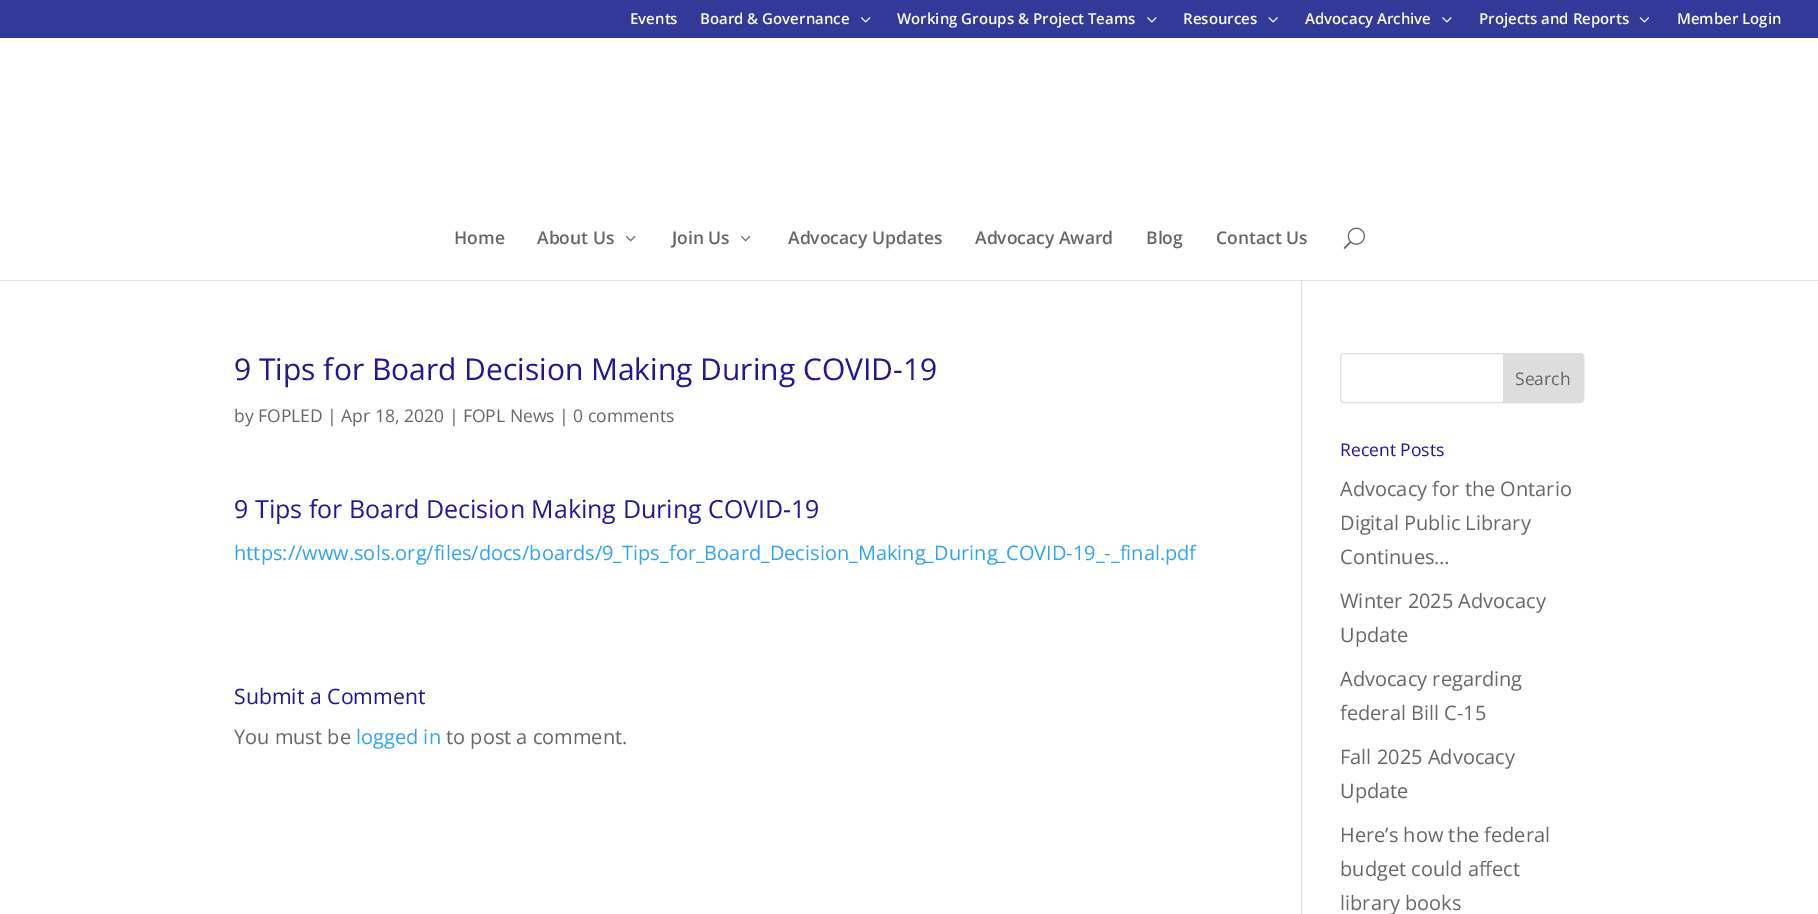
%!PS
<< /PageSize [1818 914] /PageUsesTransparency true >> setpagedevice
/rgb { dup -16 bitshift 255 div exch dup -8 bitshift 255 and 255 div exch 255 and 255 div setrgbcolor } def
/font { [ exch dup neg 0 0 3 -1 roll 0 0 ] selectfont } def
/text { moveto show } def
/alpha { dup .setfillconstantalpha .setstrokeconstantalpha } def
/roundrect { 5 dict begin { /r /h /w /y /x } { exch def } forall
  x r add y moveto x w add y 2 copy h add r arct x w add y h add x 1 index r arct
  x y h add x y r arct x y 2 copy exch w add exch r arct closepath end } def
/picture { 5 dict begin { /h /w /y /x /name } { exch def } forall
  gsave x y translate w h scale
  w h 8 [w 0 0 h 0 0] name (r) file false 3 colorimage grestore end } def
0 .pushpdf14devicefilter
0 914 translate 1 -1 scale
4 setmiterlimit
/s1 { /OpenSans-SemiBold 15 font 16#FFFFFF rgb } def
/s2 { /OpenSans-SemiBold 17.5 font 16#666666 rgb } def
/s3 { /OpenSans-Regular 30 font 16#221596 rgb } def
/s4 { /OpenSans-Regular 17.5 font 16#666666 rgb } def
/s5 { /OpenSans-Regular 25 font 16#221596 rgb } def
/s6 { /OpenSans-Regular 20 font 16#2EA3F2 rgb } def
/s7 { /OpenSans-Regular 21.25 font 16#221596 rgb } def
/s8 { /OpenSans-Regular 20 font 16#666666 rgb } def
/s9 { /OpenSans-Regular 17.5 font 16#221596 rgb } def
16#FFFFFF rgb
0 0 1818 914 rectfill
16#323998 rgb
0 0 1818 38 rectfill
s1
(Events) 630 24 text
(Board & Governance) 700 24 text
(pic1.raw) 861 17 10 6 picture
(Working Groups & Project Teams) 897 24 text
(pic2.raw) 1147 17 10 6 picture
(Resources) 1183 24 text
(pic3.raw) 1268 17 10 6 picture
(Advocacy Archive) 1305 24 text
(pic2.raw) 1442 17 10 6 picture
(Projects and Reports) 1479 24 text
(pic4.raw) 1639 17 10 6 picture
(Member Login) 1677 24 text
16#E2E2E2 rgb
1301 280 1 634 rectfill
0.1 alpha
16#000000 rgb
0 280 moveto 0 281 lineto 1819 281 lineto 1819 39 lineto 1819 280 lineto closepath fill
1 alpha
s2
(Home) 454 244 text
(About Us) 537 244 text
(pic5.raw) 626 236 10 6 picture
(Join Us) 672 244 text
(pic5.raw) 741 236 10 6 picture
(Advocacy Updates) 788 244 text
(Advocacy Award) 975 244 text
(Blog) 1146 244 text
(Contact Us) 1216 244 text
(pic6.raw) 1343 227 22 22 picture
s3
(9 Tips for Board Decision Making During COVID-19) 234 380 text
s4
(by FOPLED | Apr 18, 2020 | FOPL News | 0 comments) 234 422 text
s5
(9 Tips for Board Decision Making During COVID-19) 234 518 text
s6
(https://www.sols.org/files/docs/boards/9_Tips_for_Board_Decision_Making_During_COVID-19_-_final.pdf) 234 560 text
s7
(Submit a Comment) 234 704 text
s8
(You must be) 234 744 text
s6
(logged in) 356 744 text
s8
(to post a comment.) 446 744 text
16#DDDDDD rgb
1340.5 353.5 243 49 3.5 roundrect stroke
1503.5 353.5 moveto 1580 353.5 lineto 1582 353.5 1583.5 355 1583.5 357 curveto 1583.5 399 lineto 1583.5 401 1582 402.5 1580 402.5 curveto 1503.5 402.5 lineto closepath gsave fill grestore
stroke
s4
(Search) 1515 385 text
s9
(Recent Posts) 1340 456 text
s8
(Advocacy for the Ontario) 1340 496 text
(Digital Public Library) 1340 530 text
(Continues…) 1340 564 text
(Winter 2025 Advocacy) 1340 608 text
(Update) 1340 642 text
(Advocacy regarding) 1340 686 text
(federal Bill C-15) 1340 720 text
(Fall 2025 Advocacy) 1340 764 text
(Update) 1340 798 text
(Here’s how the federal) 1340 842 text
(budget could affect) 1340 876 text
(library books) 1340 910 text
.poppdf14devicefilter showpage
